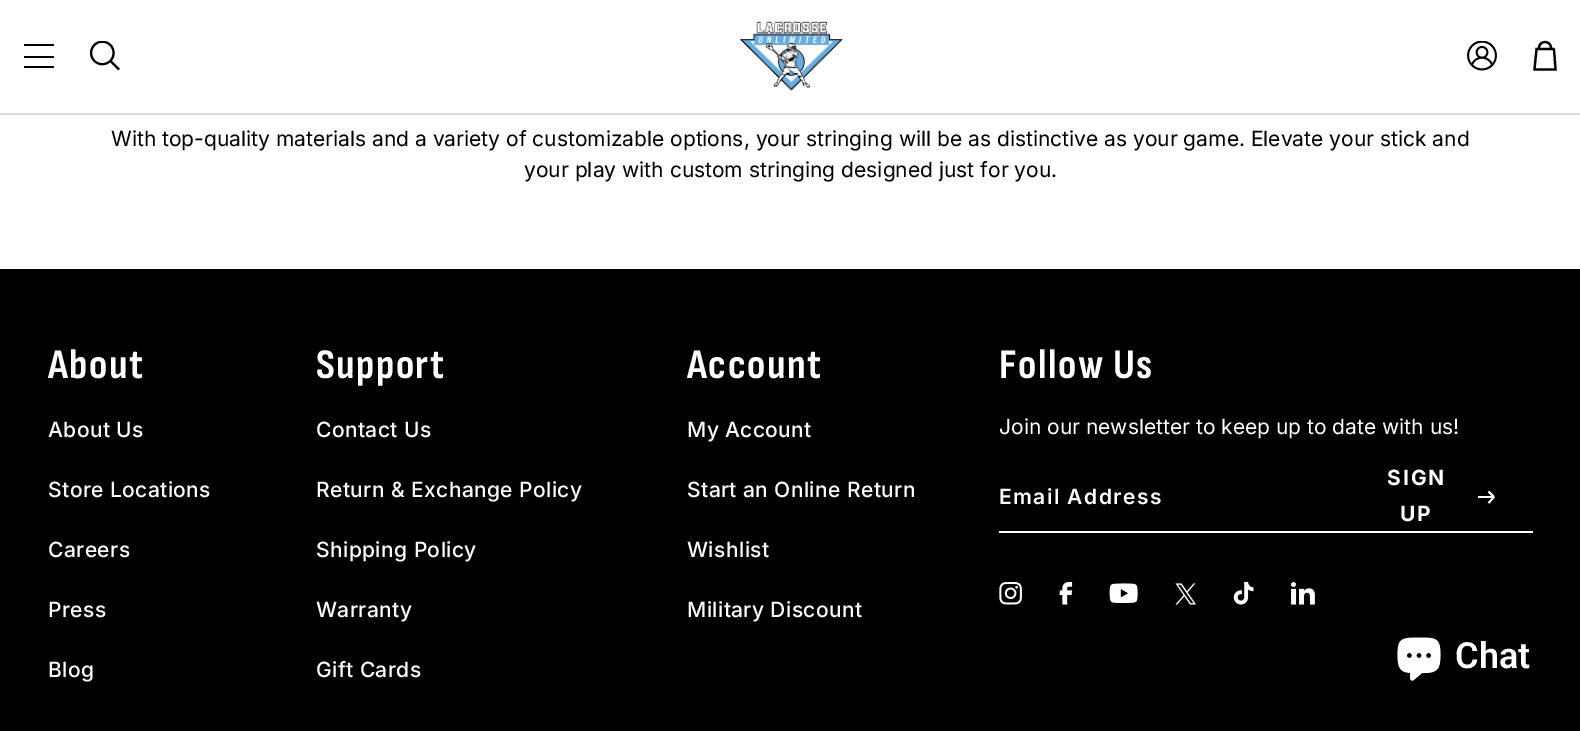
%!PS
<< /PageSize [1580 731] >> setpagedevice
/rgb { dup -16 bitshift 255 div exch dup -8 bitshift 255 and 255 div exch 255 and 255 div setrgbcolor } def
/font { [ exch dup neg 0 0 3 -1 roll 0 0 ] selectfont } def
/text { moveto show } def
/roundrect { 5 dict begin { /r /h /w /y /x } { exch def } forall
  x r add y moveto x w add y 2 copy h add r arct x w add y h add x 1 index r arct
  x y h add x y r arct x y 2 copy exch w add exch r arct closepath end } def
/picture { 5 dict begin { /h /w /y /x /name } { exch def } forall
  gsave x y translate w h scale
  w h 8 [w 0 0 h 0 0] name (r) file false 3 colorimage grestore end } def
0 731 translate 1 -1 scale
4 setmiterlimit
/s1 { /Inter-Regular 21 font 16#000000 rgb } def
/s2 { /Inter-Regular 21 font 16#FFFFFF rgb } def
/s3 { /Roboto-SemiBold 36 font 16#FFFFFF rgb } def
16#FFFFFF rgb
0 0 1580 731 rectfill
16#DCDCDF rgb
0 113 1580 2 rectfill
16#000000 rgb
24 44 30 2 1 roundrect fill
24 56 30 2 1 roundrect fill
24 66 30 2 1 roundrect fill
(pic1.raw) 90 41 30 30 picture
(pic2.raw) 740 21 103 70 picture
(pic3.raw) 1467 41 30 30 picture
2.2 setlinewidth
1 setlinecap
1536.5 49 moveto 1553.5 49 lineto 1554 49.5 lineto 1555.5 69 lineto 1555.5 69.5 lineto 1534.5 69.5 lineto 1534.5 69 lineto 1536.5 49.5 lineto closepath stroke
0 setlinecap
1551 48 moveto 1551 40 1539 40 1539 48 curveto stroke
s1
(With top-quality materials and a variety of customizable options, your stringing will be as distinctive as your game. Elevate your stick and) 111 146 text
(your play with custom stringing designed just for you.) 524 177 text
0 269 1580 462 rectfill
/SofiaSansCondensed-Bold 42 font
16#FFFFFF rgb
48 378 moveto 1.5 0 (About) ashow
/Inter-Medium 21 font
48 437 moveto 0.4 0 (About Us) ashow
48 497 moveto 0.4 0 (Store Locations) ashow
48 557 moveto 0.4 0 (Careers) ashow
48 617 moveto 0.4 0 (Press) ashow
48 677 moveto 0.4 0 (Blog) ashow
/SofiaSansCondensed-Bold 42 font
316 378 moveto 1.5 0 (Support) ashow
/Inter-Medium 21 font
316 437 moveto 0.4 0 (Contact Us) ashow
316 497 moveto 0.4 0 (Return & Exchange Policy) ashow
316 557 moveto 0.4 0 (Shipping Policy) ashow
316 617 moveto 0.4 0 (Warranty) ashow
316 677 moveto 0.4 0 (Gift Cards) ashow
/SofiaSansCondensed-Bold 42 font
687 378 moveto 1.5 0 (Account) ashow
/Inter-Medium 21 font
687 437 moveto 0.4 0 (My Account) ashow
687 497 moveto 0.4 0 (Start an Online Return) ashow
687 557 moveto 0.4 0 (Wishlist) ashow
687 617 moveto 0.4 0 (Military Discount) ashow
/SofiaSansCondensed-Bold 42 font
999 378 moveto 1.5 0 (Follow Us) ashow
s2
(Join our newsletter to keep up to date with us!) 999 434 text
999 531 534 2 rectfill
/Inter-SemiBold 21 font
999 504 moveto 1.4 0 (Email Address) ashow
/Inter-Bold 21 font
1387 485 moveto 2 0 (SIGN) ashow
1.8 setlinewidth
1478 497 moveto 1494 497 lineto 1494 497 moveto 1488.5 491.5 lineto 1494 497 moveto 1488.5 503 lineto stroke
1400 521 moveto 2 0 (UP) ashow
(pic4.raw) 999 582 23 23 picture
(pic5.raw) 1059 582 14 23 picture
(pic6.raw) 1109 583 29 21 picture
(pic7.raw) 1175 583 21 22 picture
(pic8.raw) 1233 581 21 24 picture
(pic9.raw) 1291 582 24 23 picture
(pic10.raw) 1397 637 44 44 picture
s3
(Chat) 1455 668 text
showpage
